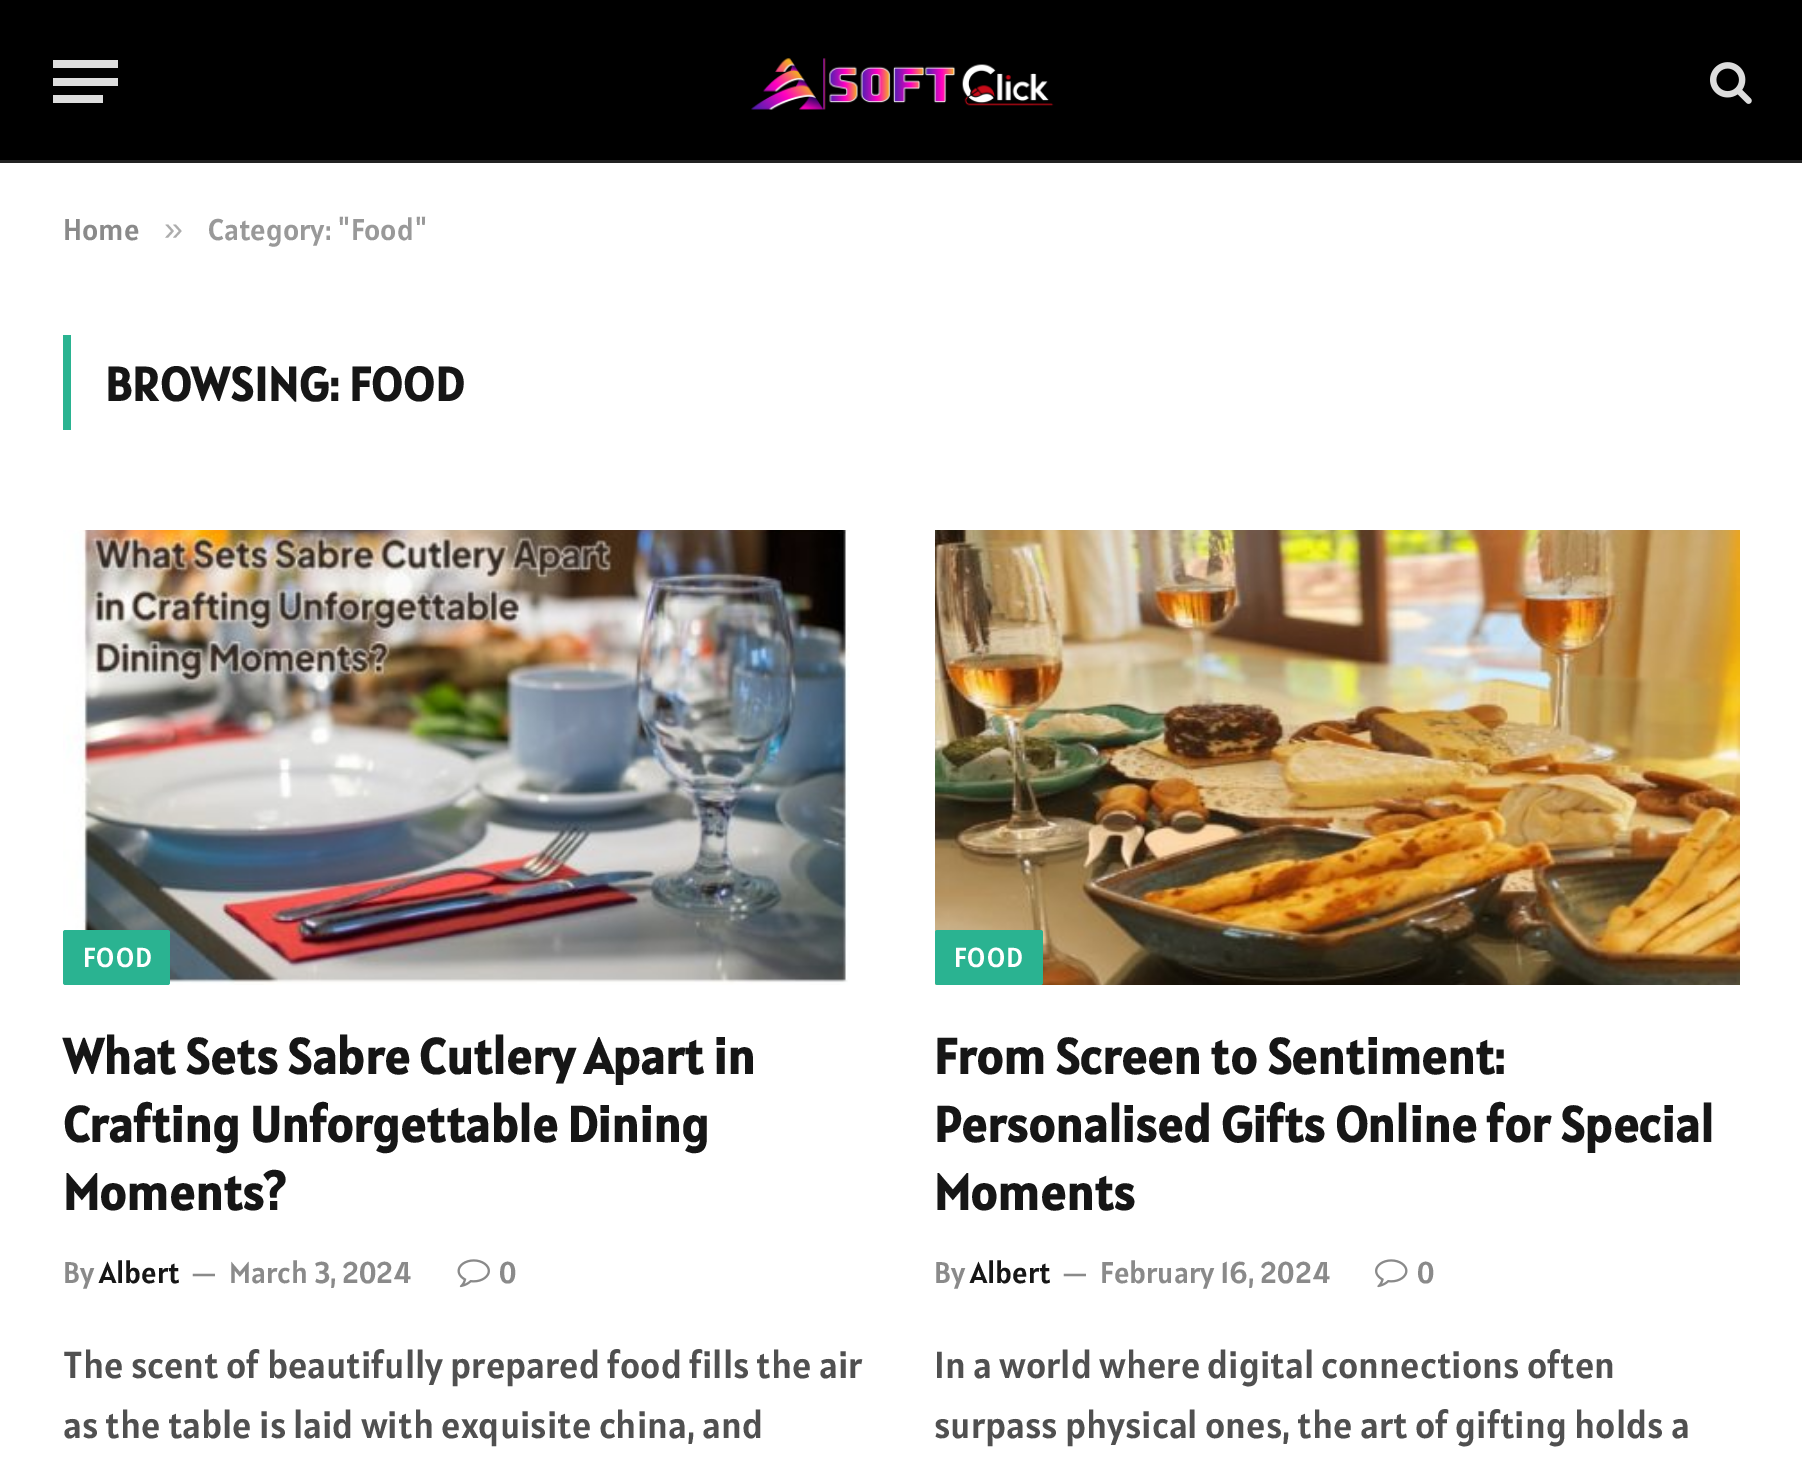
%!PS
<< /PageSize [1802 1472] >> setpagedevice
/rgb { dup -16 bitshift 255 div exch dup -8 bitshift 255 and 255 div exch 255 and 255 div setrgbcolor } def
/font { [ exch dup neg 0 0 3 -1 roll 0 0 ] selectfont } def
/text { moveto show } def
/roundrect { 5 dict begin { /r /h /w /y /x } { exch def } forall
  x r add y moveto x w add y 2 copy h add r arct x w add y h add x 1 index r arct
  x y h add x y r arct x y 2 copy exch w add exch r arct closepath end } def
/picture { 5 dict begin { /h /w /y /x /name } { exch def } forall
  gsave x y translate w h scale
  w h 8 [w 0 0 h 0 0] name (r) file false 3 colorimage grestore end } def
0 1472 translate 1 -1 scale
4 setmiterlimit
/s1 { /Alatsi-Regular 30 font 16#8A8A8A rgb } def
/s2 { /LiberationSans-Regular 34 font 16#ADADAD rgb } def
/s3 { /Alatsi-Regular 30 font 16#999999 rgb } def
/s4 { /Alatsi-Bold 50 font 16#161616 rgb } def
/s5 { /Alatsi-Regular 30 font 16#161616 rgb } def
/s6 { /Alatsi-Regular 27 font 16#8A8A8A rgb } def
/s7 { /Alatsi-Regular 37.5 font 16#505050 rgb } def
16#FFFFFF rgb
0 0 1802 1472 rectfill
16#000000 rgb
0 0 1802 160 rectfill
16#222222 rgb
0 160 1802 3 rectfill
16#DDDDDD rgb
53 95 50 8 rectfill
53 60 65 8 rectfill
53 78 65 8 rectfill
(pic1.raw) 751 58 303 52 picture
(pic2.raw) 1710 62 42 42 picture
s1
(Home) 63 240 text
s2
(») 164 240 text
s3
(Category: "Food") 208 240 text
16#2AB391 rgb
63 335 8 95 rectfill
/Alatsi-Bold 47.5 font
16#161616 rgb
105 401 moveto 0.5 0 (BROWSING: FOOD) ashow
(pic3.raw) 63 530 787 455 picture
16#2AB391 rgb
63 930 107 55 2.5 roundrect fill
/Alatsi-Regular 27.5 font
16#FFFFFF rgb
83 967 moveto 1 0 (FOOD) ashow
s4
(What Sets Sabre Cutlery Apart in) 63 1074 text
(Crafting Unforgettable Dining) 63 1142 text
(Moments?) 63 1210 text
s1
(By) 63 1283 text
s5
(Albert) 99 1283 text
s6
(—) 191 1283 text
s1
(March 3, 2024) 229 1283 text
(pic4.raw) 457 1259 33 29 picture
(0) 499 1283 text
s7
(The scent of beautifully prepared food fills the air) 63 1378 text
(as the table is laid with exquisite china, and) 63 1438 text
(pic5.raw) 935 530 805 455 picture
16#2AB391 rgb
935 930 108 55 2.5 roundrect fill
/Alatsi-Regular 27.5 font
16#FFFFFF rgb
954 967 moveto 1 0 (FOOD) ashow
s4
(From Screen to Sentiment:) 934 1074 text
(Personalised Gifts Online for Special) 934 1142 text
(Moments) 934 1210 text
s1
(By) 934 1283 text
s5
(Albert) 970 1283 text
s6
(—) 1062 1283 text
s1
(February 16, 2024) 1100 1283 text
(pic6.raw) 1375 1259 33 29 picture
(0) 1417 1283 text
s7
(In a world where digital connections often) 934 1378 text
(surpass physical ones, the art of gifting holds a) 934 1438 text
showpage
